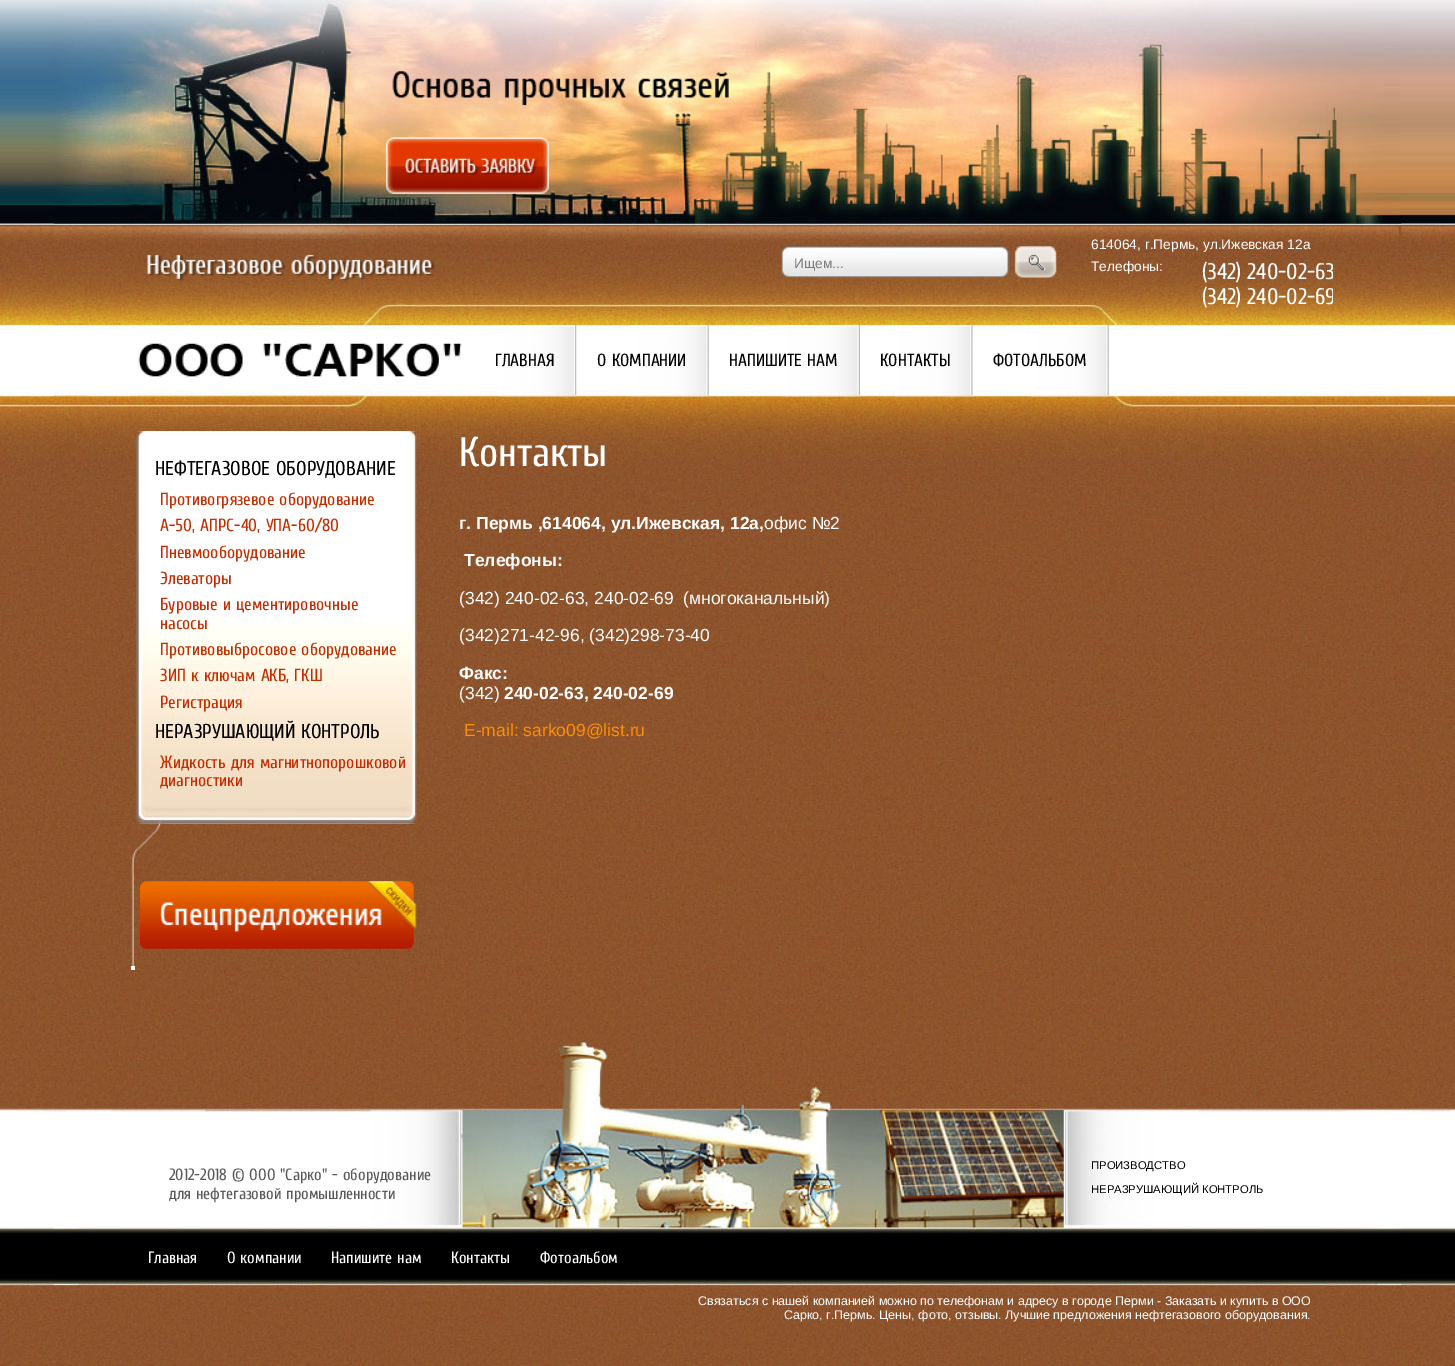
%!PS
<< /PageSize [1455 1366] >> setpagedevice
/rgb { dup -16 bitshift 255 div exch dup -8 bitshift 255 and 255 div exch 255 and 255 div setrgbcolor } def
/font { [ exch dup neg 0 0 3 -1 roll 0 0 ] selectfont } def
/text { moveto show } def
/picture { 5 dict begin { /h /w /y /x /name } { exch def } forall
  gsave x y translate w h scale
  w h 8 [w 0 0 h 0 0] name (r) file false 3 colorimage grestore end } def
0 1366 translate 1 -1 scale
4 setmiterlimit
/s1 { /LiberationSans-Regular 13.75 font 16#7C7C7C rgb } def
/s2 { /LiberationSans-Regular 13.75 font 16#FFFFFF rgb } def
/s3 { /Cuprum-Regular 22.5 font 16#FFFFFF rgb } def
/s4 { /Cuprum-Regular 17.5 font 16#000000 rgb } def
/s5 { /Cuprum-Regular 20 font 16#000000 rgb } def
/s6 { /Cuprum-Regular 17.5 font 16#C22E00 rgb } def
/s7 { /Cuprum-Regular 41 font 16#FFFFFF rgb } def
/s8 { /LiberationSans-Bold 17.5 font 16#FFFFFF rgb } def
/s9 { /LiberationSans-Regular 17.5 font 16#FFFFFF rgb } def
/s10 { /LiberationSans-Regular 17.5 font 16#FF8E00 rgb } def
/s11 { /Cuprum-Regular 16.25 font 16#595959 rgb } def
/s12 { /LiberationSans-Regular 11.25 font 16#000000 rgb } def
/s13 { /Cuprum-Regular 16.25 font 16#FFFFFF rgb } def
/s14 { /LiberationSans-Regular 12.5 font 16#FFFFFF rgb } def
16#FFFFFF rgb
0 0 1455 1366 rectfill
(pic1.raw) 0 552 1455 491 picture
(pic2.raw) 0 0 1455 224 picture
(pic3.raw) 0 0 54 220 picture
(pic4.raw) 0 223 1455 330 picture
(pic5.raw) 53 0 1349 553 picture
(pic6.raw) 392 71 337 35 picture
(pic7.raw) 386 137 163 57 picture
(pic8.raw) 147 254 288 28 picture
(pic9.raw) 781 246 276 32 picture
s1
(Ищем...) 794 268 text
s2
(614064, г.Пермь, ул.Ижевская 12а) 1091 249 text
(Телефоны:) 1091 271 text
gsave
1091 236 242 85 rectclip
s3
(\(342\) 240-02-63) 1202 279 text
(\(342\) 240-02-69) 1202 304 text
grestore
(pic10.raw) 138 343 324 34 picture
(pic11.raw) 498 325 79 72 picture
s4
(ГЛАВНАЯ) 495 366 text
(pic12.raw) 631 325 78 72 picture
(О КОМПАНИИ) 597 366 text
(pic13.raw) 782 325 78 72 picture
(НАПИШИТЕ НАМ) 729 366 text
(pic14.raw) 895 325 78 72 picture
(КОНТАКТЫ) 880 366 text
(pic15.raw) 1031 325 78 72 picture
(ФОТОАЛЬБОМ) 993 366 text
(pic16.raw) 136 431 281 393 picture
(pic17.raw) 136 554 281 270 picture
(pic18.raw) 136 431 281 9 picture
s5
(НЕФТЕГАЗОВОЕ ОБОРУДОВАНИЕ) 155 475 text
s6
(Противогрязевое оборудование) 160 505 text
(А-50, АПРС-40, УПА-60/80) 160 531 text
(Пневмооборудование) 160 558 text
(Элеваторы) 160 584 text
(Буровые и цементировочные) 160 610 text
(насосы) 160 629 text
(Противовыбросовое оборудование) 160 655 text
(ЗИП к ключам АКБ, ГКШ) 160 681 text
(Регистрация) 160 708 text
s5
(НЕРАЗРУШАЮЩИЙ КОНТРОЛЬ) 155 738 text
s6
(Жидкость для магнитнопорошковой) 160 768 text
(диагностики) 160 786 text
(pic19.raw) 131 823 3 143 picture
(pic20.raw) 131 823 33 62 picture
16#FFFFFF rgb
131 966 4 4 rectfill
(pic21.raw) 140 881 277 68 picture
s7
(Контакты) 459 466 text
s8
(г. Пермь ,614064, ул.Ижевская, 12а,) 459 529 text
s9
(офис №2) 764 529 text
s8
(Телефоны:) 464 566 text
s9
(\(342\) 240-02-63, 240-02-69) 459 604 text
(\(многоканальный\)) 683 604 text
(\(342\)271-42-96, \(342\)298-73-40) 459 641 text
s8
(Факс:) 459 679 text
s9
(\(342\)) 459 699 text
s8
(240-02-63, 240-02-69) 504 699 text
s10
(E-mail: sarko09@list.ru) 464 736 text
(pic22.raw) 0 1042 1455 324 picture
(pic23.raw) 53 1042 1349 324 picture
s11
(2012-2018 © ООО "Сарко" - оборудование) 169 1180 text
(для нефтегазовой промышленности) 169 1199 text
s12
(ПРОИЗВОДСТВО) 1091 1169 text
(НЕРАЗРУШАЮЩИЙ КОНТРОЛЬ) 1091 1193 text
s13
(Главная) 148 1263 text
(О компании) 227 1263 text
(Напишите нам) 331 1263 text
(Контакты) 451 1263 text
(Фотоальбом) 540 1263 text
s14
(Связаться с нашей компанией можно по телефонам и адресу в городе Перми - Заказать и купить в ООО) 698 1305 text
(Сарко, г.Пермь. Цены, фото, отзывы. Лучшие предложения нефтегазового оборудования.) 784 1319 text
showpage
